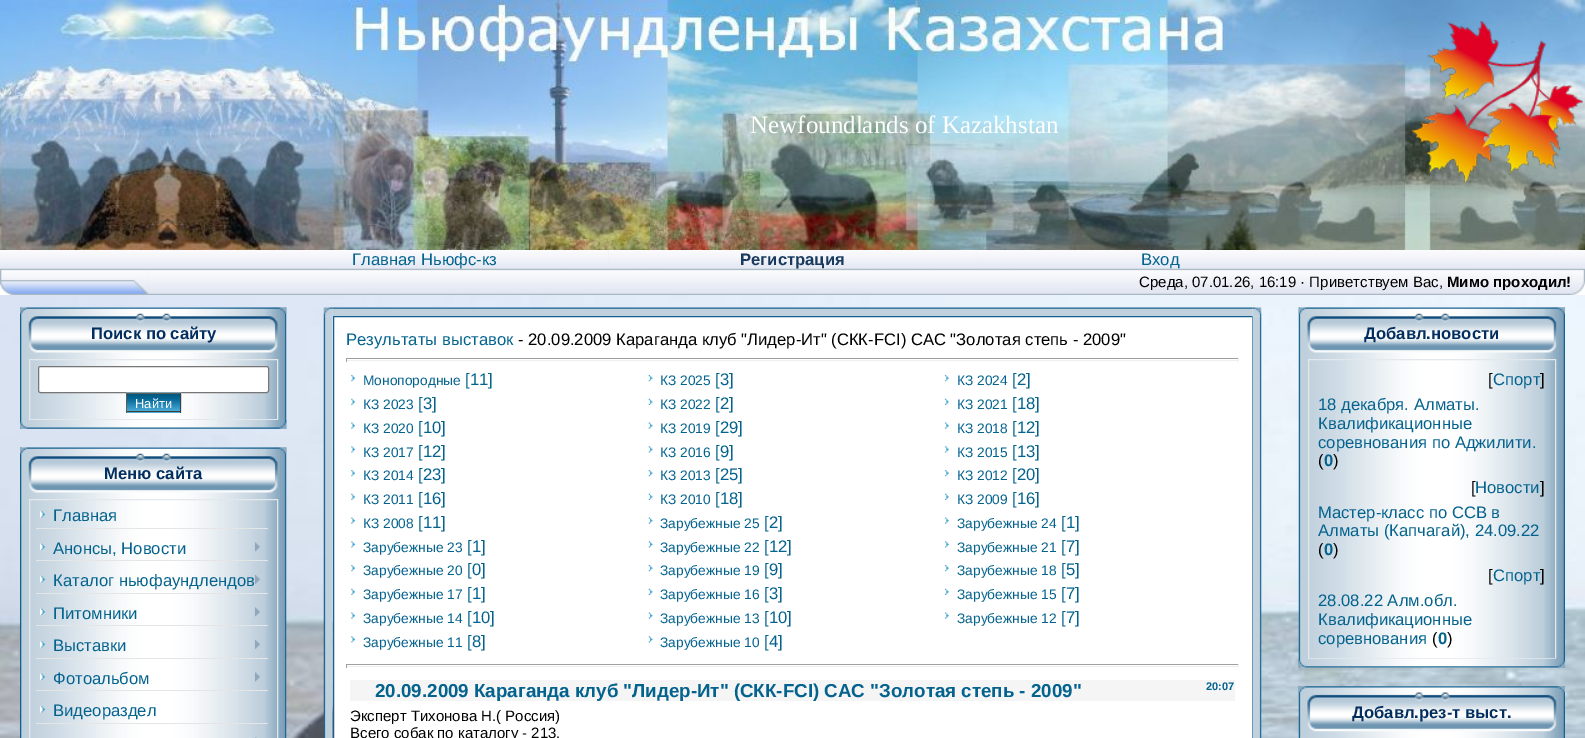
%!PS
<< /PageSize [1585 738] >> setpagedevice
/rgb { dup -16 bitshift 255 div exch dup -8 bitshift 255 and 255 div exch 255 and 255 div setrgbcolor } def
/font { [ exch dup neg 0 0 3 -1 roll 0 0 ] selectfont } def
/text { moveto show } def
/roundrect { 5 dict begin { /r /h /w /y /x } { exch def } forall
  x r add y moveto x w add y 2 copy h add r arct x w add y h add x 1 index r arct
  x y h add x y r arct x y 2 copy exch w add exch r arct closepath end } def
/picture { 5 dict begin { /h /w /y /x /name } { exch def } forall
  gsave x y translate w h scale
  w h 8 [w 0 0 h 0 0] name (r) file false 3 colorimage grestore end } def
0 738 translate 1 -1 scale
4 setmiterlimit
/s1 { /LiberationSerif-Regular 25 font 16#FFFFFF rgb } def
/s2 { /LiberationSans-Regular 16.65 font 16#04638E rgb } def
/s3 { /LiberationSans-Bold 16.65 font 16#193A5E rgb } def
/s4 { /LiberationSans-Regular 15 font 16#000000 rgb } def
/s5 { /LiberationSans-Bold 15 font 16#000000 rgb } def
/s6 { /LiberationSans-Bold 16.65 font 16#032F60 rgb } def
/s7 { /LiberationSans-Regular 13 font 16#FFFFFF rgb } def
/s8 { /LiberationSans-Regular 16.65 font 16#000000 rgb } def
/s9 { /LiberationSans-Regular 13.75 font 16#04638E rgb } def
/s10 { /LiberationSans-Bold 18.75 font 16#04638E rgb } def
/s11 { /LiberationSans-Bold 11 font 16#04638E rgb } def
/s12 { /LiberationSans-Bold 16.65 font 16#04638E rgb } def
16#FFFFFF rgb
0 0 1585 738 rectfill
(pic1.raw) 0 250 1585 488 picture
(pic3.raw) 0 0 1585 250 picture
(pic2.raw) 1409 21 176 163 picture
s1
(Newfoundlands of Kazakhstan) 750 133 text
(pic4.raw) 0 250 240 19 picture
(pic5.raw) 240 250 369 19 picture
(pic6.raw) 609 250 368 19 picture
(pic7.raw) 976 250 369 19 picture
(pic8.raw) 1345 250 240 19 picture
(pic10.raw) 148 268 1424 27 picture
s2
(Главная Ньюфс-кз) 352 265 text
s3
(Регистрация) 740 265 text
s2
(Вход) 1141 265 text
(pic9.raw) 0 268 149 27 picture
s4
(Среда, 07.01.26, 16:19 · Приветствуем Вас,) 1139 287 text
s5
(Мимо проходил!) 1447 287 text
(pic11.raw) 1571 268 14 27 picture
(pic12.raw) 20 307 267 122 picture
(pic13.raw) 20 307 267 7 picture
(pic14.raw) 28 313 250 40 picture
s6
(Поиск по сайту) 91 339 text
16#E3E8ED rgb
29.5 359.5 248 60 rectstroke
16#FFFFFF rgb
38.5 366.5 230 26 2 roundrect gsave fill grestore
16#767676 rgb
stroke
16#40A3CF rgb
127 412 53 1 rectfill
(pic15.raw) 126 392 56 21 picture
16#615E58 rgb
126 393 55 1 rectfill
16#413F3B rgb
180 393 1 20 rectfill
126 411 55 1 rectfill
16#615E58 rgb
126 393 1 20 rectfill
s7
(Найти) 135 408 text
(pic16.raw) 20 420 267 9 picture
(pic17.raw) 20 447 267 291 picture
(pic18.raw) 20 447 267 7 picture
(pic14.raw) 28 453 250 40 picture
s6
(Меню сайта) 104 479 text
16#E3E8ED rgb
29.5 499.5 248 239 rectstroke
(pic19.raw) 40 511 5 7 picture
16#E5E5E5 rgb
36 528 232 1 rectfill
s2
(Главная) 53 521 text
(pic20.raw) 40 543 5 7 picture
16#E5E5E5 rgb
36 560 232 1 rectfill
s2
(Анонсы, Новости) 53 554 text
(pic21.raw) 255 542 5 10 picture
(pic19.raw) 40 576 5 7 picture
16#E5E5E5 rgb
36 593 232 1 rectfill
s2
(Каталог ньюфаундлендов) 53 586 text
(pic22.raw) 255 575 5 9 picture
(pic20.raw) 40 608 5 7 picture
16#E5E5E5 rgb
36 625 232 1 rectfill
s2
(Питомники) 53 619 text
(pic21.raw) 255 607 5 10 picture
(pic19.raw) 40 641 5 7 picture
16#E5E5E5 rgb
36 658 232 1 rectfill
s2
(Выставки) 53 651 text
(pic22.raw) 255 640 5 9 picture
(pic20.raw) 40 673 5 7 picture
16#E5E5E5 rgb
36 690 232 1 rectfill
s2
(Фотоальбом) 53 684 text
(pic21.raw) 255 672 5 10 picture
(pic19.raw) 40 706 5 7 picture
16#E5E5E5 rgb
36 723 232 1 rectfill
s2
(Видеораздел) 53 716 text
(pic23.raw) 255 737 2 1 picture
(pic25.raw) 332 307 921 10 picture
(pic27.raw) 323 316 10 422 picture
(pic24.raw) 323 307 10 10 picture
16#FFFFFF rgb
333.5 316.5 moveto 1252.5 316.5 lineto 1252.5 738.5 lineto 333.5 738.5 lineto closepath gsave fill grestore
16#146090 rgb
stroke
(pic40.raw) 1252 316 10 422 picture
(pic26.raw) 1252 307 10 10 picture
s2
(Результаты выставок) 346 345 text
s8
(- 20.09.2009 Караганда клуб "Лидер-Ит" \(СКК-FCI\) САС "Золотая степь - 2009") 518 345 text
16#9F9F9F rgb
346 358 893 1 rectfill
16#EEEEEE rgb
1238 358 1 4 rectfill
346 360 893 1 rectfill
16#9F9F9F rgb
346 358 1 4 rectfill
(pic28.raw) 351 375 4 7 picture
s9
(Монопородные) 363 385 text
s2
([11]) 465 385 text
(pic29.raw) 648 375 5 7 picture
s9
(КЗ 2025) 660 385 text
s2
([3]) 715 385 text
(pic30.raw) 944 375 5 7 picture
s9
(КЗ 2024) 957 385 text
s2
([2]) 1012 385 text
(pic31.raw) 351 398 4 7 picture
s9
(КЗ 2023) 363 409 text
s2
([3]) 418 409 text
(pic32.raw) 648 398 5 7 picture
s9
(КЗ 2022) 660 409 text
s2
([2]) 715 409 text
(pic33.raw) 944 398 5 7 picture
s9
(КЗ 2021) 957 409 text
s2
([18]) 1012 409 text
(pic34.raw) 351 422 4 7 picture
s9
(КЗ 2020) 363 433 text
s2
([10]) 418 433 text
(pic35.raw) 648 422 5 7 picture
s9
(КЗ 2019) 660 433 text
s2
([29]) 715 433 text
(pic36.raw) 944 422 5 7 picture
s9
(КЗ 2018) 957 433 text
s2
([12]) 1012 433 text
(pic37.raw) 351 446 4 7 picture
s9
(КЗ 2017) 363 457 text
s2
([12]) 418 457 text
(pic38.raw) 648 446 5 7 picture
s9
(КЗ 2016) 660 457 text
s2
([9]) 715 457 text
(pic39.raw) 944 446 5 7 picture
s9
(КЗ 2015) 957 457 text
s2
([13]) 1012 457 text
(pic28.raw) 351 470 4 7 picture
s9
(КЗ 2014) 363 480 text
s2
([23]) 418 480 text
(pic29.raw) 648 470 5 7 picture
s9
(КЗ 2013) 660 480 text
s2
([25]) 715 480 text
(pic30.raw) 944 470 5 7 picture
s9
(КЗ 2012) 957 480 text
s2
([20]) 1012 480 text
(pic31.raw) 351 493 4 7 picture
s9
(КЗ 2011) 363 504 text
s2
([16]) 418 504 text
(pic32.raw) 648 493 5 7 picture
s9
(КЗ 2010) 660 504 text
s2
([18]) 715 504 text
(pic33.raw) 944 493 5 7 picture
s9
(КЗ 2009) 957 504 text
s2
([16]) 1012 504 text
(pic34.raw) 351 517 4 7 picture
s9
(КЗ 2008) 363 528 text
s2
([11]) 418 528 text
(pic35.raw) 648 517 5 7 picture
s9
(Зарубежные 25) 660 528 text
s2
([2]) 764 528 text
(pic36.raw) 944 517 5 7 picture
s9
(Зарубежные 24) 957 528 text
s2
([1]) 1061 528 text
(pic37.raw) 351 541 4 7 picture
s9
(Зарубежные 23) 363 552 text
s2
([1]) 467 552 text
(pic38.raw) 648 541 5 7 picture
s9
(Зарубежные 22) 660 552 text
s2
([12]) 764 552 text
(pic39.raw) 944 541 5 7 picture
s9
(Зарубежные 21) 957 552 text
s2
([7]) 1061 552 text
(pic28.raw) 351 565 4 7 picture
s9
(Зарубежные 20) 363 575 text
s2
([0]) 467 575 text
(pic29.raw) 648 565 5 7 picture
s9
(Зарубежные 19) 660 575 text
s2
([9]) 764 575 text
(pic30.raw) 944 565 5 7 picture
s9
(Зарубежные 18) 957 575 text
s2
([5]) 1061 575 text
(pic31.raw) 351 588 4 7 picture
s9
(Зарубежные 17) 363 599 text
s2
([1]) 467 599 text
(pic32.raw) 648 588 5 7 picture
s9
(Зарубежные 16) 660 599 text
s2
([3]) 764 599 text
(pic33.raw) 944 588 5 7 picture
s9
(Зарубежные 15) 957 599 text
s2
([7]) 1061 599 text
(pic34.raw) 351 612 4 7 picture
s9
(Зарубежные 14) 363 623 text
s2
([10]) 467 623 text
(pic35.raw) 648 612 5 7 picture
s9
(Зарубежные 13) 660 623 text
s2
([10]) 764 623 text
(pic36.raw) 944 612 5 7 picture
s9
(Зарубежные 12) 957 623 text
s2
([7]) 1061 623 text
(pic37.raw) 351 636 4 7 picture
s9
(Зарубежные 11) 363 647 text
s2
([8]) 467 647 text
(pic38.raw) 648 636 5 7 picture
s9
(Зарубежные 10) 660 647 text
s2
([4]) 764 647 text
16#9F9F9F rgb
346 664 893 1 rectfill
16#EEEEEE rgb
1238 664 1 4 rectfill
346 666 893 1 rectfill
16#9F9F9F rgb
346 664 1 4 rectfill
16#F5F5F5 rgb
350 680 885 21 rectfill
s10
(20.09.2009 Караганда клуб "Лидер-Ит" \(СКК-FCI\) САС "Золотая степь - 2009") 375 697 text
s11
(20:07) 1206 690 text
s4
(Эксперт Тихонова Н.\( Россия\)) 350 721 text
(Всего собак по каталогу - 213.) 350 738 text
(pic41.raw) 1298 307 267 361 picture
(pic42.raw) 1298 307 267 7 picture
(pic43.raw) 1307 313 250 40 picture
s6
(Добавл.новости) 1364 339 text
16#E3E8ED rgb
1308.5 359.5 247 299 rectstroke
s8
([) 1488 385 text
s2
(Спорт) 1493 385 text
s8
(]) 1540 385 text
s2
(18 декабря. Алматы.) 1318 410 text
(Квалификационные) 1318 429 text
(соревнования по Аджилити.) 1318 448 text
s8
(\() 1318 466 text
s12
(0) 1324 466 text
s8
(\)) 1333 466 text
([) 1471 493 text
s2
(Новости) 1475 493 text
s8
(]) 1540 493 text
s2
(Мастер-класс по ССВ в) 1318 518 text
(Алматы \(Капчагай\), 24.09.22) 1318 536 text
s8
(\() 1318 555 text
s12
(0) 1324 555 text
s8
(\)) 1333 555 text
([) 1488 581 text
s2
(Спорт) 1493 581 text
s8
(]) 1540 581 text
s2
(28.08.22 Алм.обл.) 1318 606 text
(Квалификационные) 1318 625 text
(соревнования) 1318 644 text
s8
(\() 1432 644 text
s12
(0) 1438 644 text
s8
(\)) 1447 644 text
(pic44.raw) 1298 658 267 10 picture
(pic45.raw) 1298 686 267 52 picture
(pic46.raw) 1298 686 267 7 picture
(pic47.raw) 1307 692 250 40 picture
s6
(Добавл.рез-т выст.) 1352 718 text
showpage
